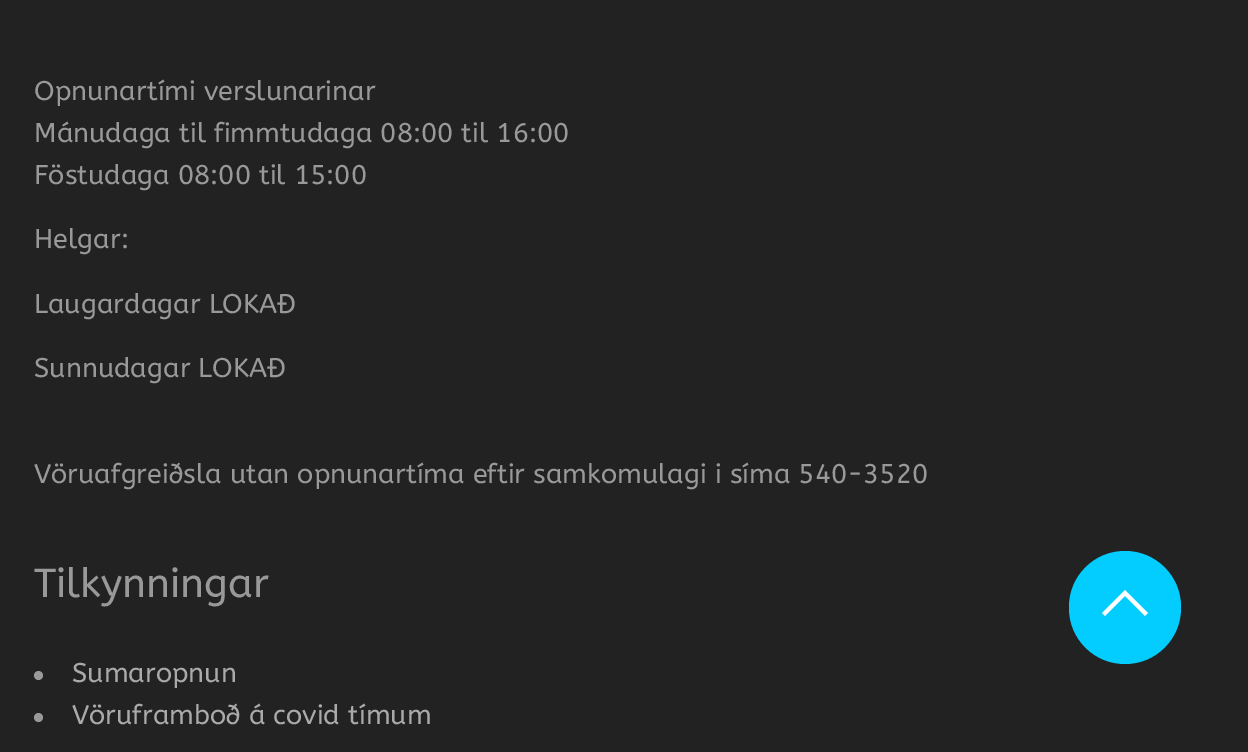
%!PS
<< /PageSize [1248 752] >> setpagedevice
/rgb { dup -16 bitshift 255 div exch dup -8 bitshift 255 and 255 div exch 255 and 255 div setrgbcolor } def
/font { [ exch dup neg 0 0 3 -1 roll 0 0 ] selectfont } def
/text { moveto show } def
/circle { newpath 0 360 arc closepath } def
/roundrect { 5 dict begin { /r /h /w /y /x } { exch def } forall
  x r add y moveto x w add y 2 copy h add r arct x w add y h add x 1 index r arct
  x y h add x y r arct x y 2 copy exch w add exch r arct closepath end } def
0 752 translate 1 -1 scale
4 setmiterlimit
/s1 { /ABeeZee-Regular 27 font 16#999999 rgb } def
/s2 { /ABeeZee-Regular 40.5 font 16#999999 rgb } def
/s3 { /ABeeZee-Regular 27 font 16#AAAAAA rgb } def
16#222222 rgb
0 0 1248 752 rectfill
s1
(Opnunartími verslunarinar) 34 100 text
(Mánudaga til fimmtudaga 08:00 til 16:00) 34 142 text
(Föstudaga 08:00 til 15:00) 34 184 text
(Helgar:) 34 248 text
(Laugardagar LOKAÐ) 34 313 text
(Sunnudagar LOKAÐ) 34 377 text
(Vöruafgreiðsla utan opnunartíma eftir samkomulagi i síma 540-3520) 34 483 text
s2
(Tilkynningar) 34 597 text
38.5 675.5 4.5 circle fill
s3
(Sumaropnun) 72 682 text
16#999999 rgb
38.5 717.5 4.5 circle fill
s3
(Vöruframboð á covid tímum) 72 724 text
16#03CDFF rgb
1069 551 112 113 56 roundrect fill
16#FFFFFF rgb
1102 613 moveto 1105 616 lineto 1125 596 lineto 1145 616 lineto 1148 613 lineto 1125 590 lineto closepath fill
showpage
